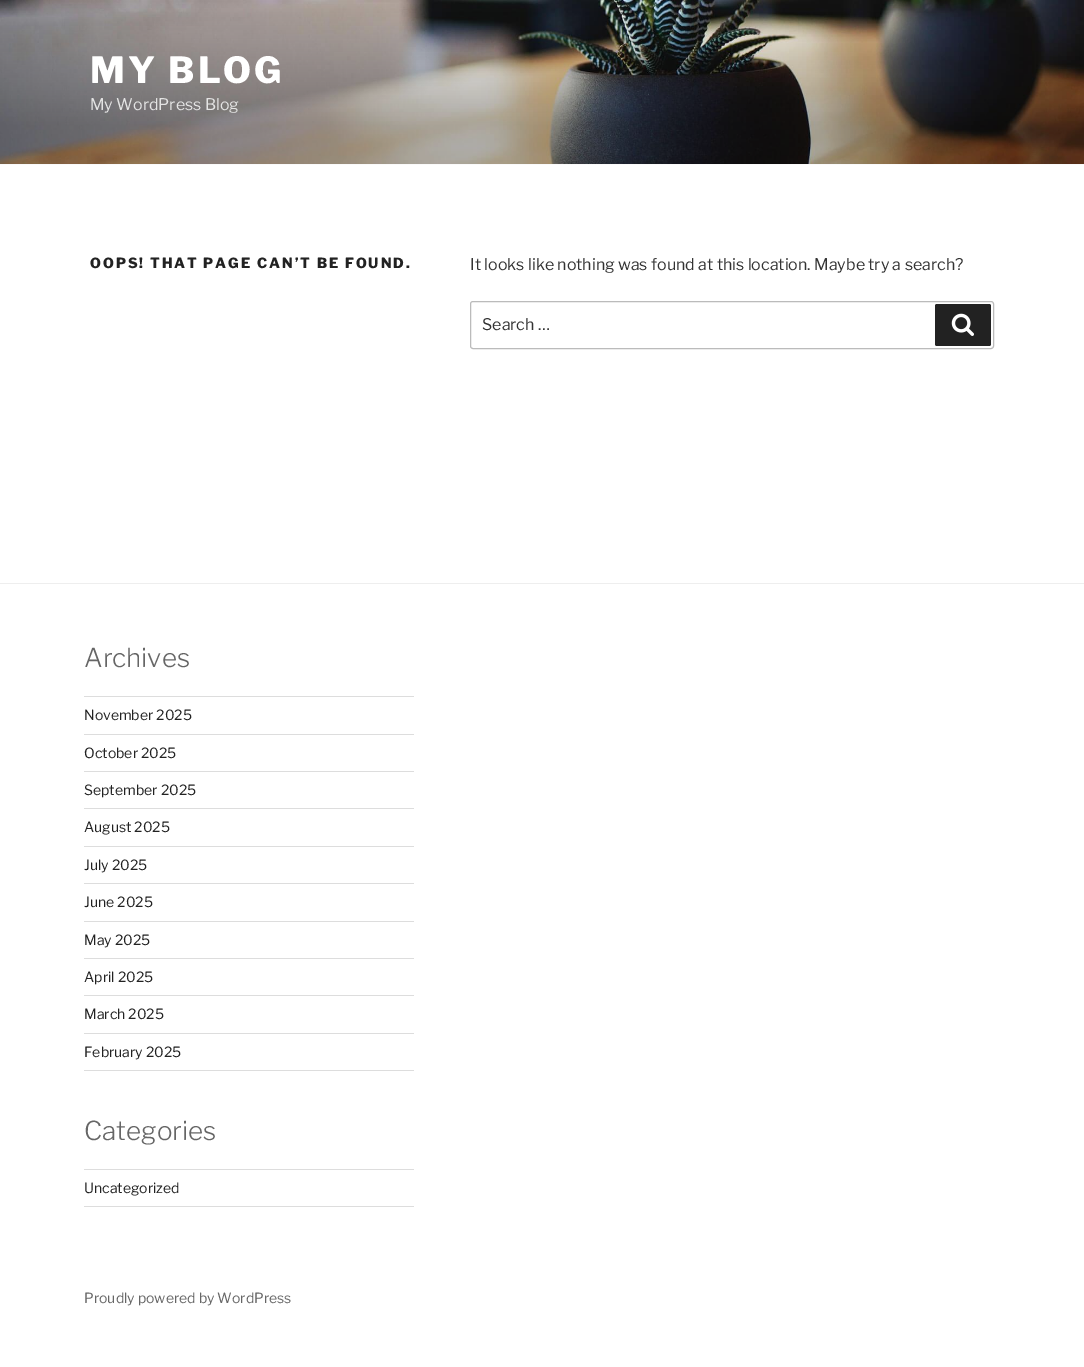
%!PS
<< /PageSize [1084 1367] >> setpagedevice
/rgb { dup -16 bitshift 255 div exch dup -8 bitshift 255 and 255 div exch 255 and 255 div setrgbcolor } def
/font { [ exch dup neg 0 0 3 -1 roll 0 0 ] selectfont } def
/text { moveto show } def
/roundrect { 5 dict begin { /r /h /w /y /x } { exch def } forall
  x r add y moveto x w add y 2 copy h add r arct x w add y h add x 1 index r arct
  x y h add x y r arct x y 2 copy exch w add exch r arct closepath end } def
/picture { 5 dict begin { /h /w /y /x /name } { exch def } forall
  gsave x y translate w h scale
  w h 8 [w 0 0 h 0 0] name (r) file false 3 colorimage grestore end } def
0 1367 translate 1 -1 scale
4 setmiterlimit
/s1 { /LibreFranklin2-Thin 16 font 16#E4E4E4 rgb } def
/s2 { /LibreFranklin2-Thin 16 font 16#333333 rgb } def
/s3 { /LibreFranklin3-Thin 26 font 16#666666 rgb } def
/s4 { /LibreFranklin2-Thin 14 font 16#222222 rgb } def
/s5 { /LibreFranklin2-Thin 14 font 16#666666 rgb } def
16#FFFFFF rgb
0 0 1084 1367 rectfill
16#FAFAFA rgb
0 164 1084 1 rectfill
(pic1.raw) 0 0 1084 164 picture
/LibreFranklin-Thin 36 font
16#FFFFFF rgb
90 83 moveto 3 0 (MY BLOG) ashow
s1
(My WordPress Blog) 90 110 text
/LibreFranklin-Thin 14 font
16#222222 rgb
90 268 moveto 1.95 0 (OOPS! THAT PAGE CAN’T BE FOUND.) ashow
s2
(It looks like nothing was found at this location. Maybe try a search?) 470 270 text
16#BBBBBB rgb
470.5 301.5 523 47 2.5 roundrect stroke
s2
(Search …) 482 330 text
16#222222 rgb
935 304 56 42 2 roundrect fill
(pic2.raw) 951 313 23 23 picture
16#EEEEEE rgb
0 583 1084 1 rectfill
s3
(Archives) 84 667 text
16#DDDDDD rgb
84 696 330 1 rectfill
84 734 330 1 rectfill
s4
(November 2025) 84 720 text
16#DDDDDD rgb
84 771 330 1 rectfill
s4
(October 2025) 84 758 text
16#DDDDDD rgb
84 808 330 1 rectfill
s4
(September 2025) 84 795 text
16#DDDDDD rgb
84 846 330 1 rectfill
s4
(August 2025) 84 832 text
16#DDDDDD rgb
84 883 330 1 rectfill
s4
(July 2025) 84 870 text
16#DDDDDD rgb
84 921 330 1 rectfill
s4
(June 2025) 84 907 text
16#DDDDDD rgb
84 958 330 1 rectfill
s4
(May 2025) 84 945 text
16#DDDDDD rgb
84 995 330 1 rectfill
s4
(April 2025) 84 982 text
16#DDDDDD rgb
84 1033 330 1 rectfill
s4
(March 2025) 84 1019 text
16#DDDDDD rgb
84 1070 330 1 rectfill
s4
(February 2025) 84 1057 text
s3
(Categories) 84 1140 text
16#DDDDDD rgb
84 1169 330 1 rectfill
84 1206 330 1 rectfill
s4
(Uncategorized) 84 1193 text
s5
(Proudly powered by WordPress) 84 1303 text
showpage
